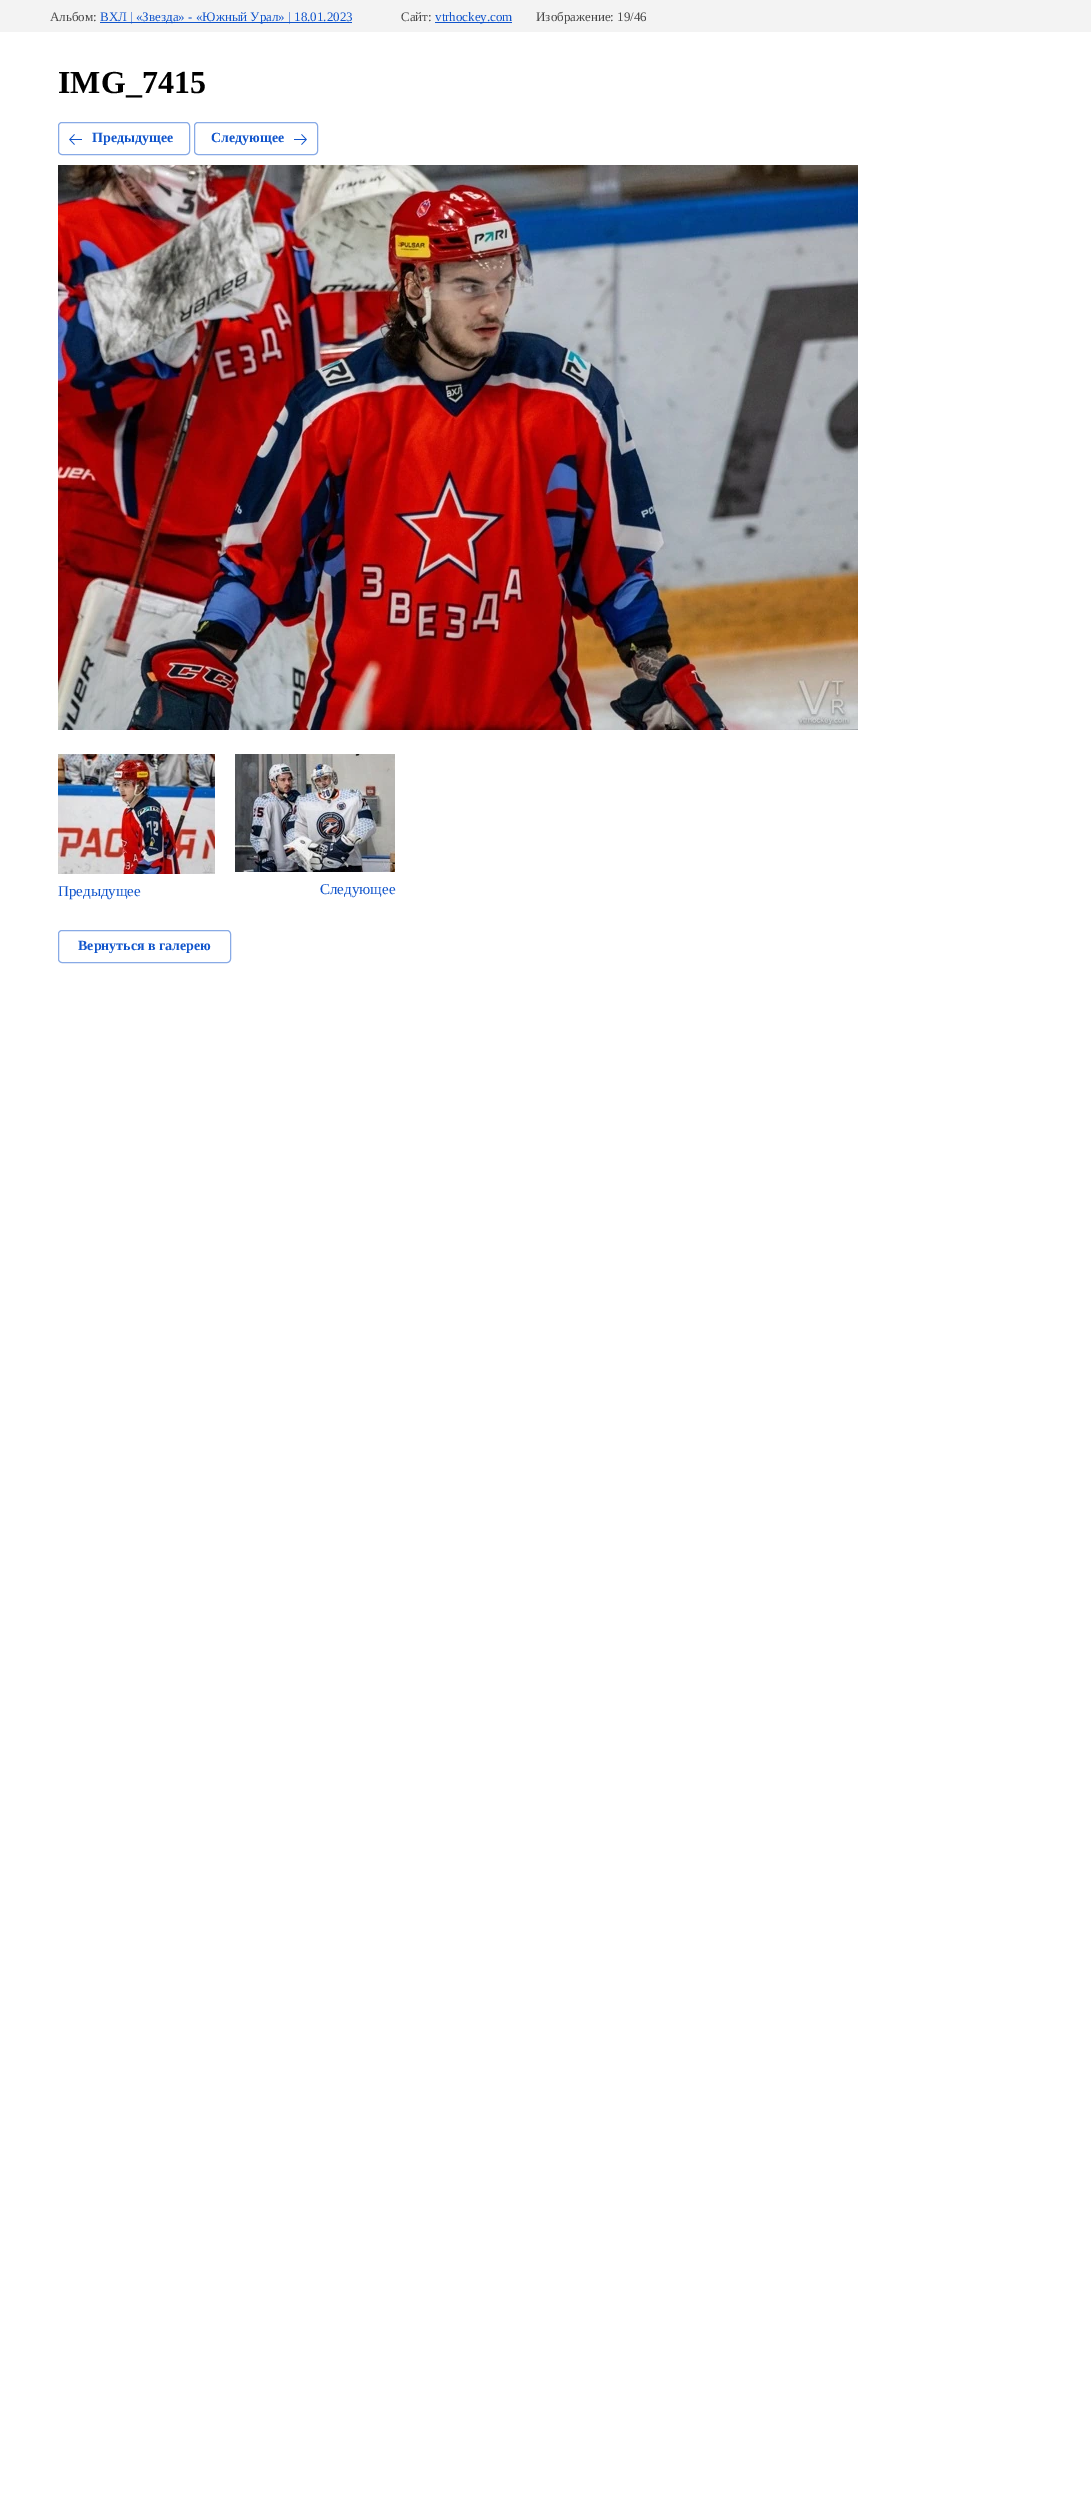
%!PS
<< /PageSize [1091 2503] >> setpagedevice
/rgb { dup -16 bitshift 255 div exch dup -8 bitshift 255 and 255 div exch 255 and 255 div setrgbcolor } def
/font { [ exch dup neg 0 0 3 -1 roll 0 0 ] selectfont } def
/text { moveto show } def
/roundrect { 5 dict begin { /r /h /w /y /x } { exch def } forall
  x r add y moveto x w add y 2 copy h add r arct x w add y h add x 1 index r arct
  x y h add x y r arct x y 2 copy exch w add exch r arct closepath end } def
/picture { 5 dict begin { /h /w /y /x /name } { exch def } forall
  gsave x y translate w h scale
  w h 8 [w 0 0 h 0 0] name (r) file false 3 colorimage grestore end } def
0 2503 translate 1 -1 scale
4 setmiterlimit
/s1 { /LiberationSerif-Regular 13 font 16#484848 rgb } def
/s2 { /LiberationSerif-Regular 13 font 16#1155CC rgb } def
/s3 { /LiberationSerif-Bold 32 font 16#000000 rgb } def
/s4 { /LiberationSerif-Bold 14 font 16#1155CC rgb } def
/s5 { /LiberationSerif-Regular 15 font 16#1155CC rgb } def
16#FFFFFF rgb
0 0 1091 2503 rectfill
16#F3F3F3 rgb
0 0 1091 32 rectfill
s1
(Альбом:) 50 21 text
16#1155CC rgb
100 22 252 1 rectfill
(ВХЛ | «Звезда» - «Южный Урал» | 18.01.2023) 100 21 text
s1
(Сайт:) 401 21 text
16#1155CC rgb
435 22 77 1 rectfill
(vtrhockey.com) 435 21 text
s1
(Изображение: 19/46) 536 21 text
s3
(IMG_7415) 58 93 text
16#88AAE6 rgb
58.5 122.5 131 32 3.5 roundrect stroke
(pic1.raw) 69 134 13 11 picture
s4
(Предыдущее) 92 142 text
16#88AAE6 rgb
194.5 122.5 123 32 3.5 roundrect stroke
s4
(Следующее) 211 142 text
(pic2.raw) 294 134 13 11 picture
(pic3.raw) 58 165 800 565 picture
(pic4.raw) 58 754 157 120 picture
s5
(Предыдущее) 58 896 text
(pic5.raw) 235 754 160 118 picture
(Следующее) 320 894 text
16#88AAE6 rgb
58.5 930.5 172 32 3.5 roundrect stroke
s4
(Вернуться в галерею) 78 950 text
showpage
